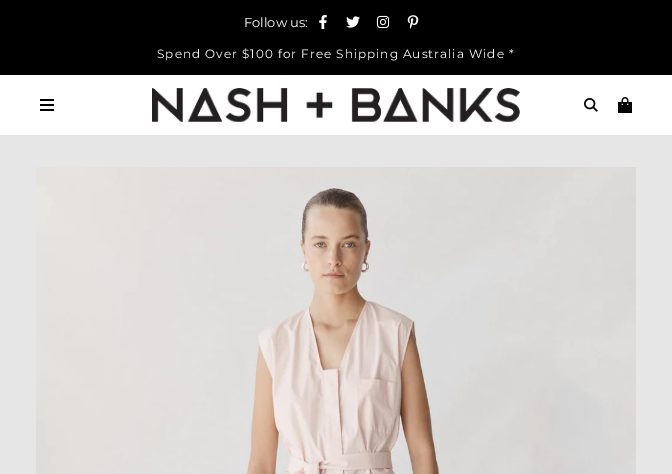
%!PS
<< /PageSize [672 474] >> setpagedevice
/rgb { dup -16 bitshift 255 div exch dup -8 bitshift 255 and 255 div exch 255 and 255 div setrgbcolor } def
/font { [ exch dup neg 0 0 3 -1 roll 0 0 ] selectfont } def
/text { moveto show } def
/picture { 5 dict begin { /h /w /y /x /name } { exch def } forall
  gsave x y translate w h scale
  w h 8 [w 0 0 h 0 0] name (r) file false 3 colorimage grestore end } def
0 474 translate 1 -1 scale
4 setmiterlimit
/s1 { /Montserrat-Regular 13 font 16#FFFFFF rgb } def
16#E6E6E6 rgb
0 0 672 474 rectfill
16#000000 rgb
0 0 672 75 rectfill
s1
(Follow us:) 244 27 text
(pic1.raw) 319 15 8 14 picture
(pic2.raw) 346 16 14 12 picture
(pic3.raw) 376 15 14 14 picture
(pic4.raw) 407 15 12 14 picture
/Montserrat-Regular 12 font
157 58 moveto 1 0 (Spend Over $100 for Free Shipping Australia Wide *) ashow
0 75 672 60 rectfill
(pic5.raw) 40 99 14 12 picture
(pic6.raw) 152 88 368 34 picture
(pic7.raw) 584 98 14 14 picture
(pic8.raw) 618 97 14 16 picture
(pic9.raw) 36 167 600 307 picture
showpage
